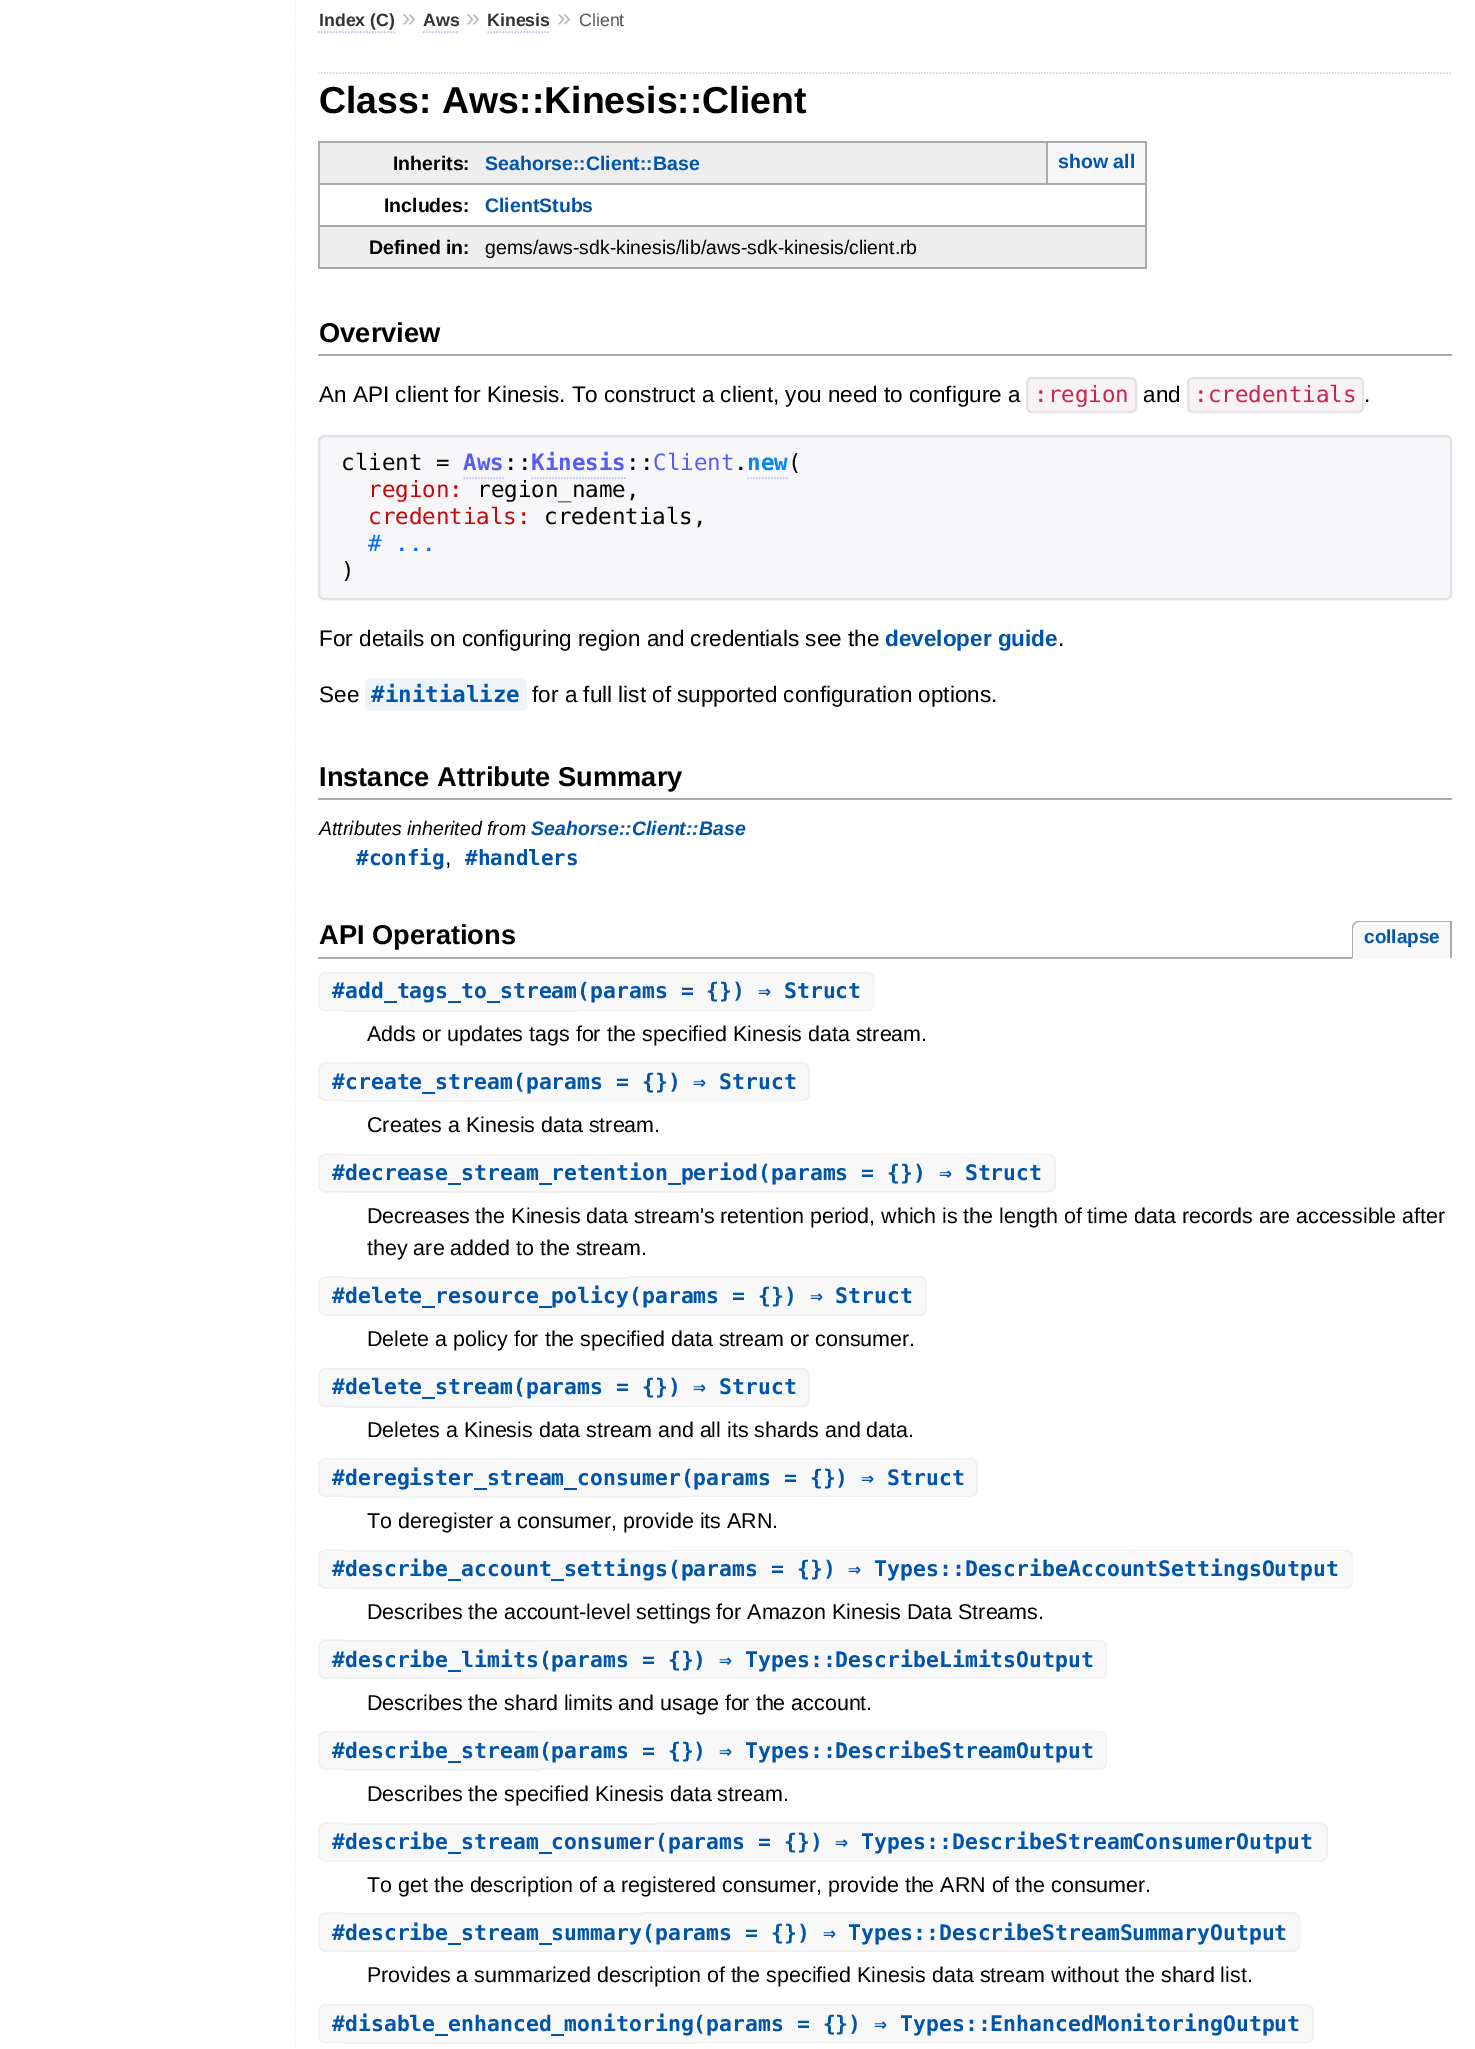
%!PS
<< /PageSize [1475 2049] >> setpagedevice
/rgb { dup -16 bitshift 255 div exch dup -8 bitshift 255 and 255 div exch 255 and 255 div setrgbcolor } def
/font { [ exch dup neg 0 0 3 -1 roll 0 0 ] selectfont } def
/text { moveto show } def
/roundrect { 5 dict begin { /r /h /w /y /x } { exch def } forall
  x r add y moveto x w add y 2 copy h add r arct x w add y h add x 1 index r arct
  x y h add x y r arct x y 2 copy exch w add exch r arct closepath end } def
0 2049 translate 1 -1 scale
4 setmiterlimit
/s1 { /LiberationSans-Bold 17.75 font 16#333333 rgb } def
/s2 { /LiberationSans-Regular 25 font 16#BBBBBB rgb } def
/s3 { /LiberationSans-Regular 17.75 font 16#555555 rgb } def
/s4 { /LiberationSans-Bold 37.5 font 16#000000 rgb } def
/s5 { /LiberationSans-Bold 19.5 font 16#000000 rgb } def
/s6 { /LiberationSans-Bold 19.5 font 16#0055AA rgb } def
/s7 { /LiberationSans-Regular 19.5 font 16#000000 rgb } def
/s8 { /LiberationSans-Bold 27.25 font 16#000000 rgb } def
/s9 { /LiberationSans-Regular 22.5 font 16#000000 rgb } def
/s10 { /DejaVuSansMono-Regular 22.5 font 16#C7254E rgb } def
/s11 { /DejaVuSansMono-Regular 22.5 font 16#000000 rgb } def
/s12 { /DejaVuSansMono-Bold 22.5 font 16#585CF6 rgb } def
/s13 { /DejaVuSansMono-Regular 22.5 font 16#585CF6 rgb } def
/s14 { /DejaVuSansMono-Bold 22.5 font 16#0085FF rgb } def
/s15 { /DejaVuSansMono-Regular 22.5 font 16#C5060B rgb } def
/s16 { /DejaVuSansMono-Regular 22.5 font 16#0066FF rgb } def
/s17 { /LiberationSans-Bold 22.5 font 16#0055AA rgb } def
/s18 { /DejaVuSansMono-Bold 22.5 font 16#0055AA rgb } def
/s19 { /LiberationSans-Italic 19.5 font 16#000000 rgb } def
/s20 { /LiberationSans-BoldItalic 19.5 font 16#0055AA rgb } def
/s21 { /DejaVuSansMono-Bold 21 font 16#0055AA rgb } def
/s22 { /LiberationSans-Regular 23 font 16#000000 rgb } def
/s23 { /LiberationSans-Bold 19 font 16#0055AA rgb } def
/s24 { /DejaVuSansMono-Bold 21.45 font 16#0055AA rgb } def
/s25 { /LiberationSans-Regular 21.45 font 16#000000 rgb } def
16#FFFFFF rgb
0 0 1475 2049 rectfill
16#EEEEEE rgb
1.5 setlinewidth
[1.5 1.5] 0 setdash
296 0 moveto 296 2049 lineto stroke
16#FFFFFF rgb
296 0 1 2048 rectfill
s1
(Index \(C\)) 319 26 text
16#BBBBDD rgb
318 32 moveto 394.5 32 lineto stroke
s2
(») 402 26 text
s1
(Aws) 423 26 text
16#BBBBDD rgb
423 32 moveto 459 32 lineto stroke
s2
(») 466 26 text
s1
(Kinesis) 487 26 text
16#BBBBDD rgb
487.5 32 moveto 550.5 32 lineto stroke
s2
(») 557 26 text
s3
(Client) 579 26 text
16#D5D5D5 rgb
318 73 moveto 1452 73 lineto stroke
s4
(Class: Aws::Kinesis::Client) 319 113 text
16#EEEEEE rgb
320 143 726 40 rectfill
16#AAAAAA rgb
318 141 828 2 rectfill
318 141 2 42 rectfill
s5
(Inherits:) 393 170 text
16#AAAAAA rgb
318 183 828 2 rectfill
318 225 828 2 rectfill
1145 141 2 128 rectfill
s6
(Seahorse::Client::Base) 485 170 text
16#F6F6F6 rgb
1048 143 97 40 rectfill
16#AAAAAA rgb
1046 143 2 40 rectfill
s6
(show all) 1058 168 text
16#AAAAAA rgb
318 183 2 42 rectfill
s5
(Includes:) 384 212 text
s6
(ClientStubs) 485 212 text
16#EEEEEE rgb
320 227 825 40 rectfill
16#AAAAAA rgb
318 267 167 2 rectfill
318 225 2 44 rectfill
s5
(Defined in:) 369 254 text
16#AAAAAA rgb
485 267 661 2 rectfill
s7
(gems/aws-sdk-kinesis/lib/aws-sdk-kinesis/client.rb) 485 254 text
16#AAAAAA rgb
318 354 1134 2 rectfill
s8
(Overview) 319 342 text
s9
(An API client for Kinesis. To construct a client, you need to configure a) 319 402 text
16#F9F2F4 rgb
1027 378 109 34 5 roundrect gsave fill grestore
16#E1E1E8 rgb
2 setlinewidth
[] 0 setdash
stroke
s10
(:region) 1034 402 text
s9
(and) 1143 402 text
16#F9F2F4 rgb
1188 378 175 34 5 roundrect gsave fill grestore
16#E1E1E8 rgb
stroke
s10
(:credentials) 1194 402 text
s9
(.) 1364 402 text
16#F7F7F9 rgb
319 436 1132 163 5 roundrect gsave fill grestore
16#E1E1E8 rgb
stroke
s11
(client =) 341 470 text
s12
(Aws) 463 470 text
s11
(::) 504 470 text
s12
(Kinesis) 531 470 text
s11
(::) 626 470 text
s13
(Client) 653 470 text
s11
(.) 734 470 text
16#BBBBFF rgb
1.5 setlinewidth
[1.5 1.5] 0 setdash
747 478 moveto 787.5 478 lineto stroke
s14
(new) 747 470 text
s11
(\() 788 470 text
s15
(region:) 368 497 text
s11
(region_name,) 477 497 text
16#BBBBFF rgb
463.5 478 moveto 504 478 lineto stroke
531 478 moveto 625.5 478 lineto stroke
s15
(credentials:) 368 524 text
s11
(credentials,) 544 524 text
s16
(# ...) 368 551 text
s11
(\)) 341 578 text
s9
(For details on configuring region and credentials see the) 319 646 text
s17
(developer guide) 885 646 text
s9
(.) 1058 646 text
(See) 319 702 text
16#EDF4FA rgb
365 678 162 33 6 roundrect fill
s18
(#initialize) 371 702 text
s9
(for a full list of supported configuration options.) 532 702 text
16#AAAAAA rgb
318 798 1134 2 rectfill
s8
(Instance Attribute Summary) 319 786 text
s19
(Attributes inherited from) 319 835 text
s20
(Seahorse::Client::Base) 531 835 text
s21
(#config) 356 865 text
s22
(,) 445 865 text
s21
(#handlers) 465 865 text
16#AAAAAA rgb
318 957 1034 2 rectfill
s8
(API Operations) 319 944 text
16#F8F8F8 rgb
1360 921 moveto 1452 921 lineto 1452 959 lineto 1352 959 lineto 1352 929 lineto 1352 924.5 1355.5 921 1360 921 curveto closepath fill
16#AAAAAA rgb
1359 921 moveto 1452 921 lineto 1452 958 lineto 1352 958 lineto 1352 928 lineto 1352 924 1355 921 1359 921 curveto closepath 1359 922 moveto 1450 922 lineto 1450 958 lineto 1353 958 lineto 1353 928 lineto 1353 925 1356 922 1359 922 curveto closepath eofill
s23
(collapse) 1364 943 text
16#F8F8F8 rgb
326 972 moveto 345 972 lineto 345 1011 lineto 326 1011 lineto 321.5 1011 318 1007.5 318 1003 curveto 318 980 lineto 318 975.5 321.5 972 326 972 curveto closepath fill
16#F0F0F0 rgb
325.5 972 moveto 345 972 lineto 345 1011 lineto 325.5 1011 lineto 321.5 1011 318 1007.5 318 1003.5 curveto 318 979.5 lineto 318 975.5 321.5 972 325.5 972 curveto closepath 325.5 973.5 moveto 345 973.5 lineto 345 1009.5 lineto 325.5 1009.5 lineto 322 1009.5 319.5 1007 319.5 1003.5 curveto 319.5 979.5 lineto 319.5 976 322 973.5 325.5 973.5 curveto closepath eofill
16#F8F8F8 rgb
345 974 233 36 rectfill
578 972 moveto 867 972 lineto 871.5 972 875 975.5 875 980 curveto 875 1003 lineto 875 1007.5 871.5 1011 867 1011 curveto 578 1011 lineto closepath fill
16#F0F0F0 rgb
578 972 moveto 867 972 lineto 871 972 874 975 874 980 curveto 874 1004 lineto 874 1008 871 1011 867 1011 curveto 578 1011 lineto closepath 578 974 moveto 867 974 lineto 870 974 873 976 873 980 curveto 873 1004 lineto 873 1007 870 1010 867 1010 curveto 578 1010 lineto closepath eofill
s24
(#add_tags_to_stream\(params = {}\) ⇒ Struct) 332 998 text
16#F0F0F0 rgb
345 972 233 2 rectfill
345 1010 233 2 rectfill
s25
(Adds or updates tags for the specified Kinesis data stream.) 367 1041 text
16#F8F8F8 rgb
326 1062 moveto 345 1062 lineto 345 1101 lineto 326 1101 lineto 321.5 1101 318 1097.5 318 1093 curveto 318 1070 lineto 318 1065.5 321.5 1062 326 1062 curveto closepath fill
16#F0F0F0 rgb
325.5 1062 moveto 345 1062 lineto 345 1101 lineto 325.5 1101 lineto 321.5 1101 318 1097.5 318 1093.5 curveto 318 1069.5 lineto 318 1065.5 321.5 1062 325.5 1062 curveto closepath 325.5 1063.5 moveto 345 1063.5 lineto 345 1099.5 lineto 325.5 1099.5 lineto 322 1099.5 319.5 1097 319.5 1093.5 curveto 319.5 1069.5 lineto 319.5 1066 322 1063.5 325.5 1063.5 curveto closepath eofill
16#F8F8F8 rgb
345 1064 168 36 rectfill
513 1062 moveto 802 1062 lineto 806.5 1062 810 1065.5 810 1070 curveto 810 1093 lineto 810 1097.5 806.5 1101 802 1101 curveto 513 1101 lineto closepath fill
16#F0F0F0 rgb
513 1062 moveto 802 1062 lineto 807 1062 810 1065 810 1070 curveto 810 1094 lineto 810 1098 807 1101 802 1101 curveto 513 1101 lineto closepath 513 1064 moveto 802 1064 lineto 806 1064 808 1066 808 1070 curveto 808 1094 lineto 808 1097 806 1100 802 1100 curveto 513 1100 lineto closepath eofill
s24
(#create_stream\(params = {}\) ⇒ Struct) 332 1089 text
16#F0F0F0 rgb
345 1062 168 2 rectfill
345 1100 168 2 rectfill
s25
(Creates a Kinesis data stream.) 367 1132 text
16#F8F8F8 rgb
326 1154 moveto 345 1154 lineto 345 1193 lineto 326 1193 lineto 321.5 1193 318 1189.5 318 1185 curveto 318 1162 lineto 318 1157.5 321.5 1154 326 1154 curveto closepath fill
16#F0F0F0 rgb
325.5 1153.5 moveto 345 1153.5 lineto 345 1192.5 lineto 325.5 1192.5 lineto 321.5 1192.5 318 1189 318 1185 curveto 318 1161 lineto 318 1157 321.5 1153.5 325.5 1153.5 curveto closepath 325.5 1155 moveto 345 1155 lineto 345 1191 lineto 325.5 1191 lineto 322 1191 319.5 1188.5 319.5 1185 curveto 319.5 1161 lineto 319.5 1157.5 322 1155 325.5 1155 curveto closepath eofill
16#F8F8F8 rgb
345 1156 413 35 rectfill
758 1154 moveto 1048 1154 lineto 1052.5 1154 1056 1157.5 1056 1162 curveto 1056 1185 lineto 1056 1189.5 1052.5 1193 1048 1193 curveto 758 1193 lineto closepath fill
16#F0F0F0 rgb
758 1154 moveto 1048 1154 lineto 1053 1154 1056 1157 1056 1161 curveto 1056 1185 lineto 1056 1189 1053 1192 1048 1192 curveto 758 1192 lineto closepath 758 1155 moveto 1048 1155 lineto 1052 1155 1054 1158 1054 1161 curveto 1054 1185 lineto 1054 1188 1052 1191 1048 1191 curveto 758 1191 lineto closepath eofill
s24
(#decrease_stream_retention_period\(params = {}\) ⇒ Struct) 332 1180 text
16#F0F0F0 rgb
345 1154 413 2 rectfill
345 1191 413 2 rectfill
s25
(Decreases the Kinesis data stream's retention period, which is the length of time data records are accessible after) 367 1223 text
(they are added to the stream.) 367 1255 text
16#F8F8F8 rgb
326 1277 moveto 345 1277 lineto 345 1316 lineto 326 1316 lineto 321.5 1316 318 1312.5 318 1308 curveto 318 1285 lineto 318 1280.5 321.5 1277 326 1277 curveto closepath fill
16#F0F0F0 rgb
325.5 1276.5 moveto 345 1276.5 lineto 345 1315.5 lineto 325.5 1315.5 lineto 321.5 1315.5 318 1312 318 1308 curveto 318 1284 lineto 318 1280 321.5 1276.5 325.5 1276.5 curveto closepath 325.5 1278 moveto 345 1278 lineto 345 1314 lineto 325.5 1314 lineto 322 1314 319.5 1311.5 319.5 1308 curveto 319.5 1284 lineto 319.5 1280.5 322 1278 325.5 1278 curveto closepath eofill
16#F8F8F8 rgb
345 1279 284 35 rectfill
629 1277 moveto 919 1277 lineto 923.5 1277 927 1280.5 927 1285 curveto 927 1308 lineto 927 1312.5 923.5 1316 919 1316 curveto 629 1316 lineto closepath fill
16#F0F0F0 rgb
345 1277 284 2 rectfill
345 1314 284 2 rectfill
628 1276 moveto 920 1276 lineto 924 1276 927 1280 927 1284 curveto 927 1308 lineto 927 1312 924 1316 920 1316 curveto 628 1316 lineto closepath 628 1278 moveto 920 1278 lineto 923 1278 926 1281 926 1284 curveto 926 1308 lineto 926 1311 923 1314 920 1314 curveto 628 1314 lineto closepath eofill
s24
(#delete_resource_policy\(params = {}\) ⇒ Struct) 332 1303 text
s25
(Delete a policy for the specified data stream or consumer.) 367 1346 text
16#F8F8F8 rgb
326 1368 moveto 345 1368 lineto 345 1407 lineto 326 1407 lineto 321.5 1407 318 1403.5 318 1399 curveto 318 1376 lineto 318 1371.5 321.5 1368 326 1368 curveto closepath fill
16#F0F0F0 rgb
325.5 1368 moveto 345 1368 lineto 345 1407 lineto 325.5 1407 lineto 321.5 1407 318 1403.5 318 1399.5 curveto 318 1375.5 lineto 318 1371.5 321.5 1368 325.5 1368 curveto closepath 325.5 1369.5 moveto 345 1369.5 lineto 345 1405.5 lineto 325.5 1405.5 lineto 322 1405.5 319.5 1403 319.5 1399.5 curveto 319.5 1375.5 lineto 319.5 1372 322 1369.5 325.5 1369.5 curveto closepath eofill
16#F8F8F8 rgb
345 1370 168 36 rectfill
513 1368 moveto 802 1368 lineto 806.5 1368 810 1371.5 810 1376 curveto 810 1399 lineto 810 1403.5 806.5 1407 802 1407 curveto 513 1407 lineto closepath fill
16#F0F0F0 rgb
513 1368 moveto 802 1368 lineto 807 1368 810 1371 810 1376 curveto 810 1400 lineto 810 1404 807 1407 802 1407 curveto 513 1407 lineto closepath 513 1370 moveto 802 1370 lineto 806 1370 808 1372 808 1376 curveto 808 1400 lineto 808 1403 806 1406 802 1406 curveto 513 1406 lineto closepath eofill
s24
(#delete_stream\(params = {}\) ⇒ Struct) 332 1394 text
16#F0F0F0 rgb
345 1368 168 2 rectfill
345 1406 168 2 rectfill
s25
(Deletes a Kinesis data stream and all its shards and data.) 367 1437 text
16#F8F8F8 rgb
326 1458 moveto 345 1458 lineto 345 1497 lineto 326 1497 lineto 321.5 1497 318 1493.5 318 1489 curveto 318 1466 lineto 318 1461.5 321.5 1458 326 1458 curveto closepath fill
16#F0F0F0 rgb
325.5 1458 moveto 345 1458 lineto 345 1497 lineto 325.5 1497 lineto 321.5 1497 318 1493.5 318 1489.5 curveto 318 1465.5 lineto 318 1461.5 321.5 1458 325.5 1458 curveto closepath 325.5 1459.5 moveto 345 1459.5 lineto 345 1495.5 lineto 325.5 1495.5 lineto 322 1495.5 319.5 1493 319.5 1489.5 curveto 319.5 1465.5 lineto 319.5 1462 322 1459.5 325.5 1459.5 curveto closepath eofill
16#F8F8F8 rgb
345 1460 336 36 rectfill
681 1458 moveto 970 1458 lineto 974.5 1458 978 1461.5 978 1466 curveto 978 1489 lineto 978 1493.5 974.5 1497 970 1497 curveto 681 1497 lineto closepath fill
16#F0F0F0 rgb
681 1458 moveto 970 1458 lineto 975 1458 978 1461 978 1466 curveto 978 1490 lineto 978 1494 975 1497 970 1497 curveto 681 1497 lineto closepath 681 1460 moveto 970 1460 lineto 974 1460 976 1462 976 1466 curveto 976 1490 lineto 976 1493 974 1496 970 1496 curveto 681 1496 lineto closepath eofill
s24
(#deregister_stream_consumer\(params = {}\) ⇒ Struct) 332 1485 text
16#F0F0F0 rgb
345 1458 336 2 rectfill
345 1496 336 2 rectfill
s25
(To deregister a consumer, provide its ARN.) 367 1528 text
16#F8F8F8 rgb
326 1550 moveto 345 1550 lineto 345 1589 lineto 326 1589 lineto 321.5 1589 318 1585.5 318 1581 curveto 318 1558 lineto 318 1553.5 321.5 1550 326 1550 curveto closepath fill
16#F0F0F0 rgb
325.5 1549.5 moveto 345 1549.5 lineto 345 1588.5 lineto 325.5 1588.5 lineto 321.5 1588.5 318 1585 318 1581 curveto 318 1557 lineto 318 1553 321.5 1549.5 325.5 1549.5 curveto closepath 325.5 1551 moveto 345 1551 lineto 345 1587 lineto 325.5 1587 lineto 322 1587 319.5 1584.5 319.5 1581 curveto 319.5 1557 lineto 319.5 1553.5 322 1551 325.5 1551 curveto closepath eofill
16#F8F8F8 rgb
345 1552 323 35 rectfill
668 1550 moveto 1345 1550 lineto 1349.5 1550 1353 1553.5 1353 1558 curveto 1353 1581 lineto 1353 1585.5 1349.5 1589 1345 1589 curveto 668 1589 lineto closepath fill
16#F0F0F0 rgb
668 1550 moveto 1346 1550 lineto 1350 1550 1353 1553 1353 1557 curveto 1353 1581 lineto 1353 1585 1350 1588 1346 1588 curveto 668 1588 lineto closepath 668 1551 moveto 1346 1551 lineto 1349 1551 1352 1554 1352 1557 curveto 1352 1581 lineto 1352 1584 1349 1587 1346 1587 curveto 668 1587 lineto closepath eofill
s24
(#describe_account_settings\(params = {}\) ⇒ Types::DescribeAccountSettingsOutput) 332 1576 text
16#F0F0F0 rgb
345 1550 323 2 rectfill
345 1587 323 2 rectfill
s25
(Describes the account-level settings for Amazon Kinesis Data Streams.) 367 1619 text
16#F8F8F8 rgb
326 1640 moveto 345 1640 lineto 345 1679 lineto 326 1679 lineto 321.5 1679 318 1675.5 318 1671 curveto 318 1648 lineto 318 1643.5 321.5 1640 326 1640 curveto closepath fill
16#F0F0F0 rgb
325.5 1639.5 moveto 345 1639.5 lineto 345 1678.5 lineto 325.5 1678.5 lineto 321.5 1678.5 318 1675 318 1671 curveto 318 1647 lineto 318 1643 321.5 1639.5 325.5 1639.5 curveto closepath 325.5 1641 moveto 345 1641 lineto 345 1677 lineto 325.5 1677 lineto 322 1677 319.5 1674.5 319.5 1671 curveto 319.5 1647 lineto 319.5 1643.5 322 1641 325.5 1641 curveto closepath eofill
16#F8F8F8 rgb
345 1642 194 35 rectfill
539 1640 moveto 1099 1640 lineto 1103.5 1640 1107 1643.5 1107 1648 curveto 1107 1671 lineto 1107 1675.5 1103.5 1679 1099 1679 curveto 539 1679 lineto closepath fill
16#F0F0F0 rgb
345 1640 194 2 rectfill
345 1677 194 2 rectfill
538 1640 moveto 1100 1640 lineto 1104 1640 1107 1643 1107 1647 curveto 1107 1671 lineto 1107 1675 1104 1678 1100 1678 curveto 538 1678 lineto closepath 538 1641 moveto 1100 1641 lineto 1103 1641 1106 1644 1106 1647 curveto 1106 1671 lineto 1106 1674 1103 1677 1100 1677 curveto 538 1677 lineto closepath eofill
s24
(#describe_limits\(params = {}\) ⇒ Types::DescribeLimitsOutput) 332 1667 text
s25
(Describes the shard limits and usage for the account.) 367 1710 text
16#F8F8F8 rgb
326 1731 moveto 345 1731 lineto 345 1770 lineto 326 1770 lineto 321.5 1770 318 1766.5 318 1762 curveto 318 1739 lineto 318 1734.5 321.5 1731 326 1731 curveto closepath fill
16#F0F0F0 rgb
325.5 1731 moveto 345 1731 lineto 345 1770 lineto 325.5 1770 lineto 321.5 1770 318 1766.5 318 1762.5 curveto 318 1738.5 lineto 318 1734.5 321.5 1731 325.5 1731 curveto closepath 325.5 1732.5 moveto 345 1732.5 lineto 345 1768.5 lineto 325.5 1768.5 lineto 322 1768.5 319.5 1766 319.5 1762.5 curveto 319.5 1738.5 lineto 319.5 1735 322 1732.5 325.5 1732.5 curveto closepath eofill
16#F8F8F8 rgb
345 1733 194 36 rectfill
539 1731 moveto 1099 1731 lineto 1103.5 1731 1107 1734.5 1107 1739 curveto 1107 1762 lineto 1107 1766.5 1103.5 1770 1099 1770 curveto 539 1770 lineto closepath fill
16#F0F0F0 rgb
345 1731 194 2 rectfill
345 1769 194 2 rectfill
538 1731 moveto 1100 1731 lineto 1104 1731 1107 1734 1107 1738 curveto 1107 1762 lineto 1107 1767 1104 1770 1100 1770 curveto 538 1770 lineto closepath 538 1732 moveto 1100 1732 lineto 1103 1732 1106 1735 1106 1738 curveto 1106 1762 lineto 1106 1766 1103 1768 1100 1768 curveto 538 1768 lineto closepath eofill
s24
(#describe_stream\(params = {}\) ⇒ Types::DescribeStreamOutput) 332 1758 text
s25
(Describes the specified Kinesis data stream.) 367 1801 text
16#F8F8F8 rgb
326 1823 moveto 345 1823 lineto 345 1862 lineto 326 1862 lineto 321.5 1862 318 1858.5 318 1854 curveto 318 1831 lineto 318 1826.5 321.5 1823 326 1823 curveto closepath fill
16#F0F0F0 rgb
325.5 1822.5 moveto 345 1822.5 lineto 345 1861.5 lineto 325.5 1861.5 lineto 321.5 1861.5 318 1858 318 1854 curveto 318 1830 lineto 318 1826 321.5 1822.5 325.5 1822.5 curveto closepath 325.5 1824 moveto 345 1824 lineto 345 1860 lineto 325.5 1860 lineto 322 1860 319.5 1857.5 319.5 1854 curveto 319.5 1830 lineto 319.5 1826.5 322 1824 325.5 1824 curveto closepath eofill
16#F8F8F8 rgb
345 1825 311 35 rectfill
656 1823 moveto 1320 1823 lineto 1324.5 1823 1328 1826.5 1328 1831 curveto 1328 1854 lineto 1328 1858.5 1324.5 1862 1320 1862 curveto 656 1862 lineto closepath fill
16#F0F0F0 rgb
656 1822 moveto 1320 1822 lineto 1324 1822 1328 1826 1328 1830 curveto 1328 1854 lineto 1328 1858 1324 1862 1320 1862 curveto 656 1862 lineto closepath 656 1824 moveto 1320 1824 lineto 1323 1824 1326 1827 1326 1830 curveto 1326 1854 lineto 1326 1857 1323 1860 1320 1860 curveto 656 1860 lineto closepath eofill
s24
(#describe_stream_consumer\(params = {}\) ⇒ Types::DescribeStreamConsumerOutput) 332 1849 text
16#F0F0F0 rgb
345 1823 311 2 rectfill
345 1860 311 2 rectfill
s25
(To get the description of a registered consumer, provide the ARN of the consumer.) 367 1892 text
16#F8F8F8 rgb
326 1913 moveto 345 1913 lineto 345 1952 lineto 326 1952 lineto 321.5 1952 318 1948.5 318 1944 curveto 318 1921 lineto 318 1916.5 321.5 1913 326 1913 curveto closepath fill
16#F0F0F0 rgb
325.5 1912.5 moveto 345 1912.5 lineto 345 1951.5 lineto 325.5 1951.5 lineto 321.5 1951.5 318 1948 318 1944 curveto 318 1920 lineto 318 1916 321.5 1912.5 325.5 1912.5 curveto closepath 325.5 1914 moveto 345 1914 lineto 345 1950 lineto 325.5 1950 lineto 322 1950 319.5 1947.5 319.5 1944 curveto 319.5 1920 lineto 319.5 1916.5 322 1914 325.5 1914 curveto closepath eofill
16#F8F8F8 rgb
345 1915 297 35 rectfill
642 1913 moveto 1293 1913 lineto 1297.5 1913 1301 1916.5 1301 1921 curveto 1301 1944 lineto 1301 1948.5 1297.5 1952 1293 1952 curveto 642 1952 lineto closepath fill
16#F0F0F0 rgb
642 1912 moveto 1293 1912 lineto 1297 1912 1300 1916 1300 1920 curveto 1300 1944 lineto 1300 1948 1297 1952 1293 1952 curveto 642 1952 lineto closepath 642 1914 moveto 1293 1914 lineto 1296 1914 1299 1917 1299 1920 curveto 1299 1944 lineto 1299 1947 1296 1950 1293 1950 curveto 642 1950 lineto closepath eofill
s24
(#describe_stream_summary\(params = {}\) ⇒ Types::DescribeStreamSummaryOutput) 332 1940 text
16#F0F0F0 rgb
345 1913 297 2 rectfill
345 1950 297 2 rectfill
s25
(Provides a summarized description of the specified Kinesis data stream without the shard list.) 367 1982 text
16#F8F8F8 rgb
326 2004 moveto 345 2004 lineto 345 2043 lineto 326 2043 lineto 321.5 2043 318 2039.5 318 2035 curveto 318 2012 lineto 318 2007.5 321.5 2004 326 2004 curveto closepath fill
16#F0F0F0 rgb
325.5 2004 moveto 345 2004 lineto 345 2043 lineto 325.5 2043 lineto 321.5 2043 318 2039.5 318 2035.5 curveto 318 2011.5 lineto 318 2007.5 321.5 2004 325.5 2004 curveto closepath 325.5 2005.5 moveto 345 2005.5 lineto 345 2041.5 lineto 325.5 2041.5 lineto 322 2041.5 319.5 2039 319.5 2035.5 curveto 319.5 2011.5 lineto 319.5 2008 322 2005.5 325.5 2005.5 curveto closepath eofill
16#F8F8F8 rgb
345 2006 348 36 rectfill
693 2004 moveto 1306 2004 lineto 1310.5 2004 1314 2007.5 1314 2012 curveto 1314 2035 lineto 1314 2039.5 1310.5 2043 1306 2043 curveto 693 2043 lineto closepath fill
16#F0F0F0 rgb
693 2004 moveto 1306 2004 lineto 1311 2004 1314 2007 1314 2012 curveto 1314 2036 lineto 1314 2040 1311 2043 1306 2043 curveto 693 2043 lineto closepath 693 2006 moveto 1306 2006 lineto 1310 2006 1312 2008 1312 2012 curveto 1312 2036 lineto 1312 2039 1310 2042 1306 2042 curveto 693 2042 lineto closepath eofill
s24
(#disable_enhanced_monitoring\(params = {}\) ⇒ Types::EnhancedMonitoringOutput) 332 2031 text
16#F0F0F0 rgb
345 2004 348 2 rectfill
345 2042 348 2 rectfill
showpage
